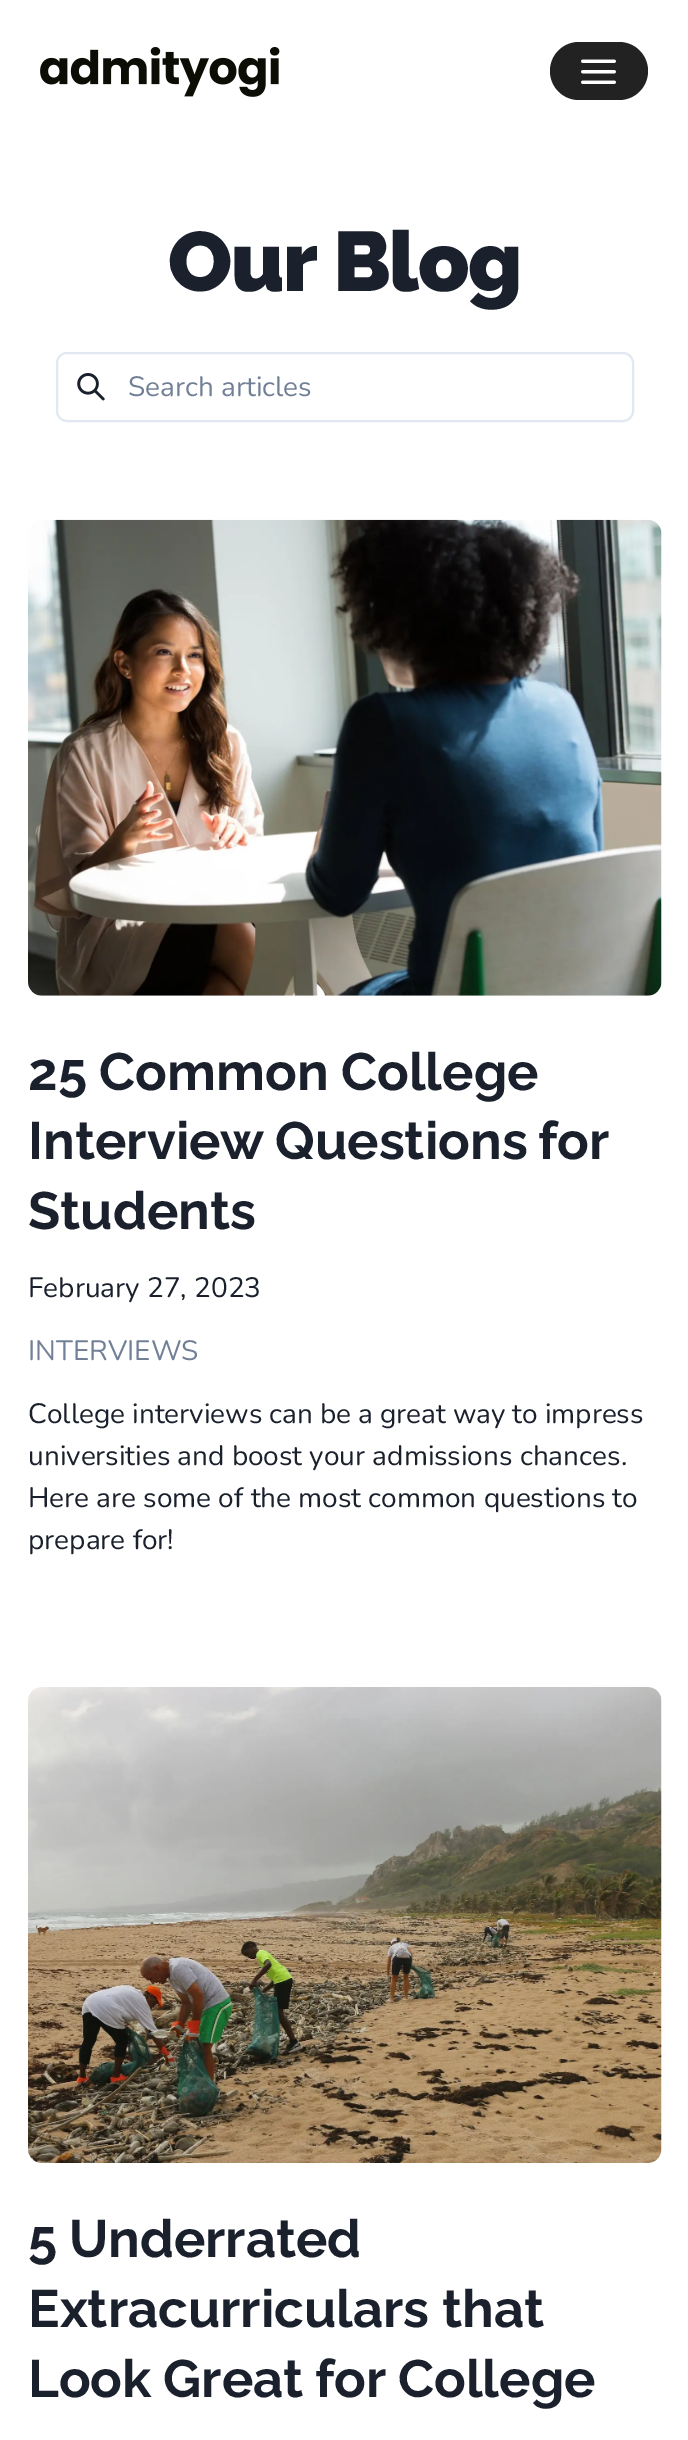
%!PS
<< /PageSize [688 2440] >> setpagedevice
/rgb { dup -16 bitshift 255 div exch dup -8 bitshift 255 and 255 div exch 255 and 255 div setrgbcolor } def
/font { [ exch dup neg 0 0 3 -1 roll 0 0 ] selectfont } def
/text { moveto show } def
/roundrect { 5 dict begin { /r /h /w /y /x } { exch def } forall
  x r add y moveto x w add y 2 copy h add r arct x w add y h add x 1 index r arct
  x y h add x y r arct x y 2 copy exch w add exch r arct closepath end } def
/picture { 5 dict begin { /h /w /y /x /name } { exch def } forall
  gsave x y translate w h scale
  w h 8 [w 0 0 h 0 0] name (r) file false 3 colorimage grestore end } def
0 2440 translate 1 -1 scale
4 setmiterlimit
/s1 { /Nunito-ExtraLight 28 font 16#718096 rgb } def
/s2 { /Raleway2-Thin 52.5 font 16#1A202C rgb } def
/s3 { /Nunito-ExtraLight 28 font 16#1A202C rgb } def
16#FFFFFF rgb
0 0 688 2440 rectfill
(pic1.raw) 40 47 240 50 picture
16#222222 rgb
550 42 98 58 29 roundrect fill
(pic2.raw) 581 59 35 25 picture
/Raleway-Thin 84 font
16#1A202C rgb
168 291 moveto -2 0 32 -1.25 0 (Our Blog) awidthshow
16#E2E8F0 rgb
2 setlinewidth
57 353 576 68 10 roundrect stroke
(pic3.raw) 77 373 28 28 picture
s1
(Search articles) 128 396 text
(pic4.raw) 28 519 634 477 picture
s2
(25 Common College) 28 1090 text
28 1159 moveto -2 0 32 (Interview Questions for) widthshow
(Students) 28 1229 text
s3
(February 27, 2023) 28 1297 text
s1
(INTERVIEWS) 28 1360 text
16#1A202C rgb
28 1423 moveto -0.25 0 32 (College interviews can be a great way to impress) widthshow
(universities and boost your admissions chances.) 28 1465 text
(Here are some of the most common questions to) 28 1507 text
(prepare for!) 28 1549 text
(pic5.raw) 28 1687 634 476 picture
/Raleway2-Thin 52.5 font
28 2257 moveto -1 0 32 (5 Underrated) widthshow
(Extracurriculars that) 28 2327 text
28 2397 moveto -1 0 32 (Look Great for College) widthshow
showpage
